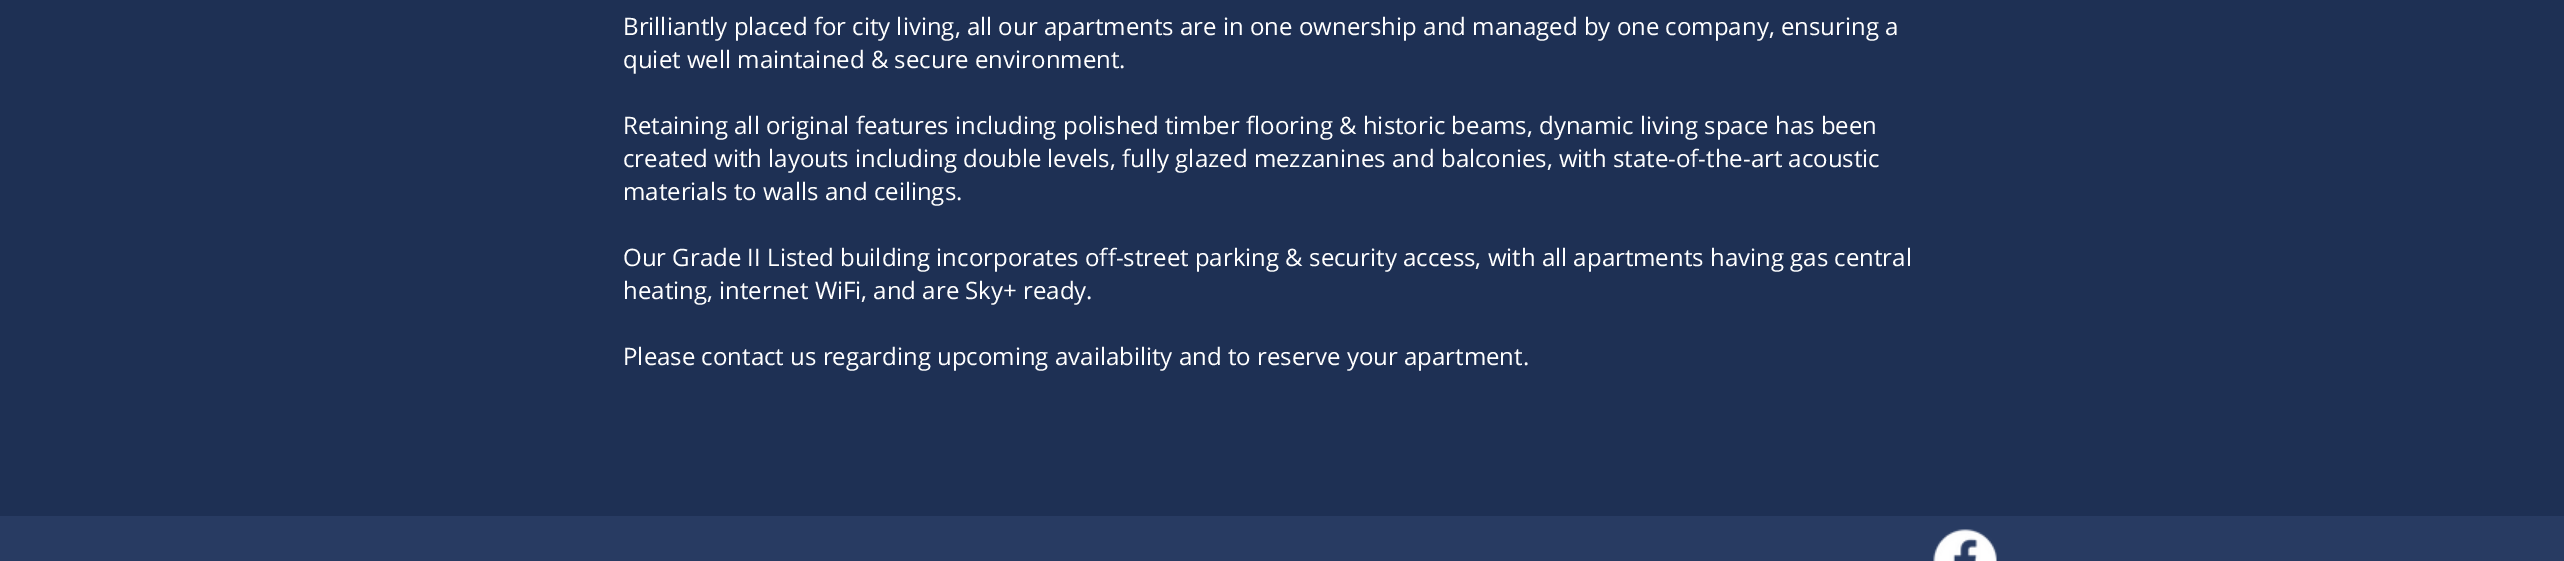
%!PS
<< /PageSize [2564 561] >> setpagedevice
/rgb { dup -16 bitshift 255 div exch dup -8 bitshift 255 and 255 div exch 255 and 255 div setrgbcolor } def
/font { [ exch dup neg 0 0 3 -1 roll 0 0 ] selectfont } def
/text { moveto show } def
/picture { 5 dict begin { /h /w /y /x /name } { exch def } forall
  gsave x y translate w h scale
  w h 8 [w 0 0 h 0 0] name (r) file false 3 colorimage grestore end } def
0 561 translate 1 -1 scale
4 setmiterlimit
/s1 { /OpenSans-Regular 24 font 16#FFFFFF rgb } def
16#1E3054 rgb
0 0 2564 561 rectfill
s1
(Brilliantly placed for city living, all our apartments are in one ownership and managed by one company, ensuring a) 623 35 text
(quiet well maintained & secure environment.) 623 68 text
(Retaining all original features including polished timber flooring & historic beams, dynamic living space has been) 623 134 text
(created with layouts including double levels, fully glazed mezzanines and balconies, with state-of-the-art acoustic) 623 167 text
(materials to walls and ceilings.) 623 200 text
(Our Grade II Listed building incorporates off-street parking & security access, with all apartments having gas central) 623 266 text
(heating, internet WiFi, and are Sky+ ready.) 623 299 text
(Please contact us regarding upcoming availability and to reserve your apartment.) 623 365 text
16#283B62 rgb
0 516 2564 45 rectfill
(pic1.raw) 1933 529 64 32 picture
showpage
